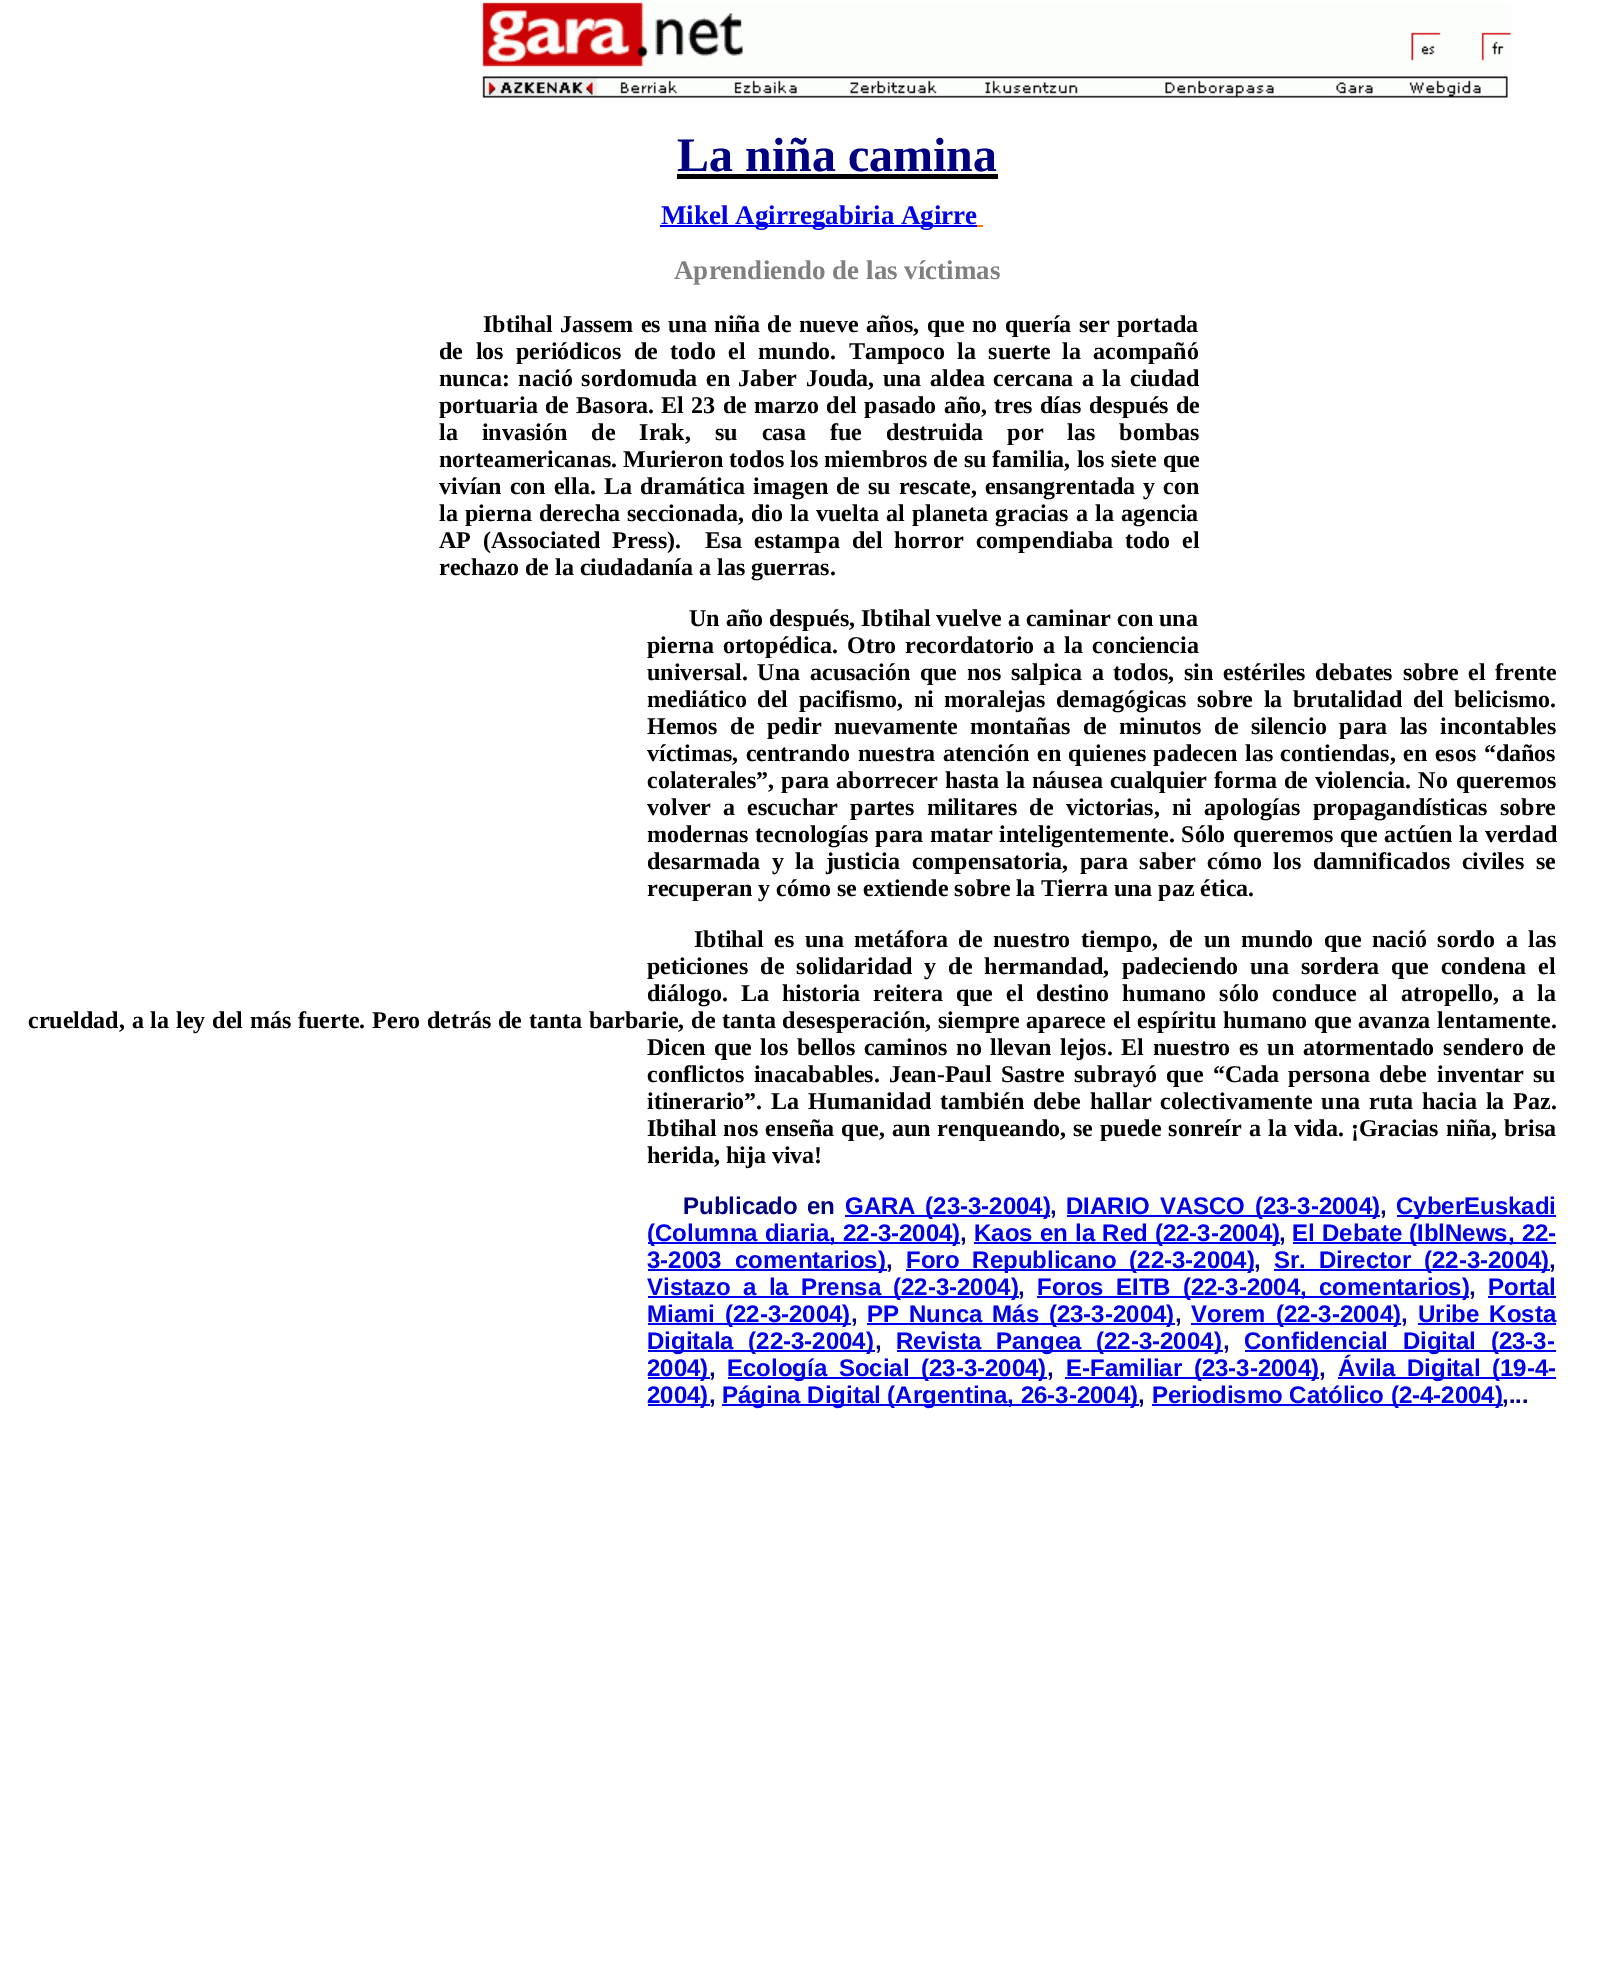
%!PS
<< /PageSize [1605 1968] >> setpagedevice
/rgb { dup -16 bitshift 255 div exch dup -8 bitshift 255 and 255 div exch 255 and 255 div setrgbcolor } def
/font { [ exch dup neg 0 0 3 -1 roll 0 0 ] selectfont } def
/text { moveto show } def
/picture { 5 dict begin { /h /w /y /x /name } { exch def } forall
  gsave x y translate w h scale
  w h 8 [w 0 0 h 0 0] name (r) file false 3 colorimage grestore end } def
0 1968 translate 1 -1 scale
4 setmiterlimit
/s1 { /LiberationSerif-Bold 48 font 16#000080 rgb } def
/s2 { /LiberationSerif-Bold 27 font 16#0000EE rgb } def
/s3 { /LiberationSerif-Bold 27 font 16#808080 rgb } def
/s4 { /LiberationSerif-Bold 24 font 16#000000 rgb } def
/s5 { /LiberationSans-Bold 24 font 16#000080 rgb } def
/s6 { /LiberationSans-Bold 24 font 16#0000EE rgb } def
16#FFFFFF rgb
0 0 1605 1968 rectfill
(pic1.raw) 482 2 1029 96 picture
s1
(La niña camina) 677 171 text
16#000000 rgb
677 174 321 5 rectfill
16#0000EE rgb
660 225 317 2 rectfill
s2
(Mikel Agirregabiria Agirre) 661 224 text
16#FF7800 rgb
977 225 6 2 rectfill
s3
(Aprendiendo de las víctimas) 674 279 text
/LiberationSerif-Bold 24 font
16#000000 rgb
483 332 moveto 1.5 0 32 (Ibtihal Jassem es una niña de nueve años,) widthshow
927 332 moveto 1.5 0 32 (que no quería ser portada) widthshow
439 359 moveto 6.5 0 32 (de los periódicos de todo el mundo. Tampoco la suerte) widthshow
1062 359 moveto 6.5 0 32 (la acompañó) widthshow
439 386 moveto 2.5 0 32 (nunca: nació sordomuda en Jaber Jouda, una aldea cercana a la) widthshow
(ciudad) 1130 386 text
439 413 moveto 1.25 0 32 (portuaria de Basora. El 23 de marzo del pasado año, tres días después de) widthshow
439 440 moveto 18.1 0 32 (la invasión de Irak, su casa fue destruida por las bombas) widthshow
(norteamericanas.) 439 467 text
623 467 moveto 0.25 0 32 (Murieron todos los miembros de su familia, los siete que) widthshow
439 494 moveto 2 0 32 (vivían con ella. La) widthshow
640 494 moveto 2 0 32 (dramática imagen de su rescate, ensangrentada y con) widthshow
439 521 moveto 1.25 0 32 (la pierna derecha) widthshow
627 521 moveto 1.25 0 32 (seccionada, dio la vuelta al planeta gracias a la agencia) widthshow
439 548 moveto 6 0 32 (AP \(Associated Press\).) widthshow
705 548 moveto 6 0 32 (Esa estampa del horror compendiaba todo el) widthshow
(rechazo de la ciudadanía a las guerras.) 439 575 text
(Un año después, Ibtihal vuelve a caminar con una) 689 626 text
647 653 moveto 3 0 32 (pierna ortopédica. Otro) widthshow
905 653 moveto 3 0 32 (recordatorio a la conciencia) widthshow
647 680 moveto 3.75 0 32 (universal. Una acusación que nos salpica a todos,) widthshow
1184 680 moveto 3.75 0 32 (sin estériles debates sobre el frente) widthshow
647 707 moveto 4.5 0 32 (mediático del pacifismo, ni moralejas) widthshow
1056 707 moveto 4.5 0 32 (demagógicas sobre la brutalidad del belicismo.) widthshow
647 734 moveto 6.5 0 32 (Hemos de pedir nuevamente) widthshow
970 734 moveto 6.5 0 32 (montañas de minutos de silencio para las incontables) widthshow
647 761 moveto 1.5 0 32 (víctimas, centrando) widthshow
858 761 moveto 1.5 0 32 (nuestra atención en quienes padecen las contiendas, en esos “daños) widthshow
647 788 moveto 1 0 32 (colaterales”, para aborrecer hasta la náusea cualquier forma de violencia. No) widthshow
(queremos) 1456 788 text
647 815 moveto 6.25 0 32 (volver a escuchar partes militares de victorias, ni apologías) widthshow
1313 815 moveto 6.25 0 32 (propagandísticas sobre) widthshow
647 842 moveto 0.75 0 32 (modernas tecnologías para matar inteligentemente. Sólo) widthshow
1233 842 moveto 1 0 32 (queremos que actúen la verdad) widthshow
647 869 moveto 5.5 0 32 (desarmada y la justicia compensatoria, para saber) widthshow
1207 869 moveto 5.5 0 32 (cómo los damnificados civiles se) widthshow
(recuperan y cómo se extiende sobre la Tierra una paz ética.) 647 896 text
694 947 moveto 4.75 0 32 (Ibtihal es una metáfora de nuestro tiempo,) widthshow
1169 947 moveto 4.75 0 32 (de un mundo que nació sordo a las) widthshow
647 974 moveto 6 0 32 (peticiones de solidaridad y de hermandad,) widthshow
1122 974 moveto 6 0 32 (padeciendo una sordera que condena el) widthshow
647 1001 moveto 7 0 32 (diálogo. La historia reitera que el) widthshow
1036 1001 moveto 7 0 32 (destino humano sólo conduce al atropello, a la) widthshow
28 1028 moveto 0.9 0 32 (crueldad, a la ley del más) widthshow
298 1028 moveto 0.9 0 32 (fuerte. Pero detrás de tanta barbarie, de tanta desesperación, siempre aparece) widthshow
1113 1028 moveto 1 0 32 (el espíritu) widthshow
1223 1028 moveto 1 0 32 (humano que avanza lentamente.) widthshow
647 1055 moveto 2.5 0 32 (Dicen que los bellos caminos no llevan lejos. El) widthshow
1153 1055 moveto 2.5 0 32 (nuestro es un atormentado s) widthshow
(endero) 1453 1055 text
(de) 1532 1055 text
647 1082 moveto 3.25 0 32 (conflictos inacabables. Jean-Paul Sastre subrayó que “Cada persona debe) widthshow
1437 1082 moveto 3.25 0 32 (inventar su) widthshow
647 1109 moveto 3 0 32 (itinerario”. La Humanidad también debe hallar colectivamente una) widthshow
1369 1109 moveto 3 0 32 (ruta hacia la Paz.) widthshow
647 1136 moveto 1 0 32 (Ibtihal nos enseña que, aun renqueando, se puede sonreír a) widthshow
1268 1136 moveto 1 0 32 (la vida. ¡Gracias niña, brisa) widthshow
(herida, hija viva!) 647 1163 text
s5
(Publicado) 683 1214 text
(en) 807 1214 text
16#0000EE rgb
845 1215 205 2 rectfill
845 1214 moveto 3 0 32 (GARA \(23-3-2004\)) widthshow
s5
(,) 1050 1214 text
16#0000EE rgb
1067 1215 313 2 rectfill
1066 1214 moveto 3 0 32 (DIARIO VASCO \(23-3-2004\)) widthshow
s5
(,) 1380 1214 text
16#0000EE rgb
1397 1215 159 2 rectfill
(CyberEuskadi) 1396 1214 text
648 1242 312 2 rectfill
647 1241 moveto 0.5 0 32 (\(Columna diaria,) widthshow
(22-3-2004\)) 843 1241 text
s5
(,) 960 1241 text
16#0000EE rgb
974 1242 306 2 rectfill
974 1241 moveto 0.5 0 32 (Kaos en la Red \(22-3-2004\)) widthshow
s5
(,) 1279 1241 text
16#0000EE rgb
1293 1242 263 2 rectfill
1292 1241 moveto 0.5 0 32 (El Debate \(IblNews, 22-) widthshow
(3-2003) 647 1268 text
648 1269 239 2 rectfill
(comentarios\)) 735 1268 text
s5
(,) 886 1268 text
16#0000EE rgb
906 1269 348 2 rectfill
906 1268 moveto 6.25 0 32 (Foro Republicano \(22-3-2004\)) widthshow
s5
(,) 1254 1268 text
16#0000EE rgb
1274 1269 276 2 rectfill
1274 1268 moveto 6.25 0 32 (Sr. Director \(22-3-2004\)) widthshow
s5
(,) 1549 1268 text
16#0000EE rgb
648 1296 371 2 rectfill
647 1295 moveto 5.5 0 32 (Vistazo a la Prensa \(22-3-2004\)) widthshow
s5
(,) 1018 1295 text
16#0000EE rgb
1037 1296 432 2 rectfill
1037 1295 moveto 5.5 0 32 (Foros EITB \(22-3-2004,) widthshow
(comentarios\)) 1319 1295 text
s5
(,) 1469 1295 text
16#0000EE rgb
1488 1296 68 2 rectfill
(Portal) 1488 1295 text
648 1323 203 2 rectfill
647 1322 moveto 3.25 0 32 (Miami \(22-3-2004\)) widthshow
s5
(,) 851 1322 text
16#0000EE rgb
867 1323 308 2 rectfill
867 1322 moveto 3.25 0 32 (PP Nunca Más \(23-3-2004\)) widthshow
s5
(,) 1175 1322 text
16#0000EE rgb
1191 1323 210 2 rectfill
1191 1322 moveto 3.25 0 32 (Vorem \(22-3-2004\)) widthshow
s5
(,) 1401 1322 text
16#0000EE rgb
1418 1323 138 2 rectfill
1418 1322 moveto 3.25 0 32 (Uribe Kosta) widthshow
648 1350 227 2 rectfill
647 1349 moveto 8 0 32 (Digitala \(22-3-2004\)) widthshow
s5
(,) 875 1349 text
16#0000EE rgb
897 1350 326 2 rectfill
896 1349 moveto 8 0 32 (Revista Pangea \(22-3-2004\)) widthshow
s5
(,) 1223 1349 text
16#0000EE rgb
1245 1350 311 2 rectfill
1244 1349 moveto 8 0 32 (Confidencial Digital \(23-3-) widthshow
648 1377 62 2 rectfill
(2004\)) 647 1376 text
s5
(,) 709 1376 text
16#0000EE rgb
728 1377 319 2 rectfill
727 1376 moveto 5 0 32 (Ecología Social \(23-3-2004\)) widthshow
s5
(,) 1047 1376 text
16#0000EE rgb
1065 1377 254 2 rectfill
1066 1376 moveto 5 0 32 (E-Familiar \(23-3-2004\)) widthshow
s5
(,) 1319 1376 text
s6
(Ávila) 1338 1376 text
1338 1377 218 2 rectfill
1407 1376 moveto 5 0 32 (Digital \(19-4-) widthshow
648 1404 62 2 rectfill
(2004\)) 647 1403 text
s5
(,) 709 1403 text
16#0000EE rgb
722 1404 417 2 rectfill
(Página Digital \(Argentina, 26-3-2004\)) 722 1403 text
s5
(,) 1138 1403 text
16#0000EE rgb
1152 1404 351 2 rectfill
(Periodismo Católico \(2-4-2004\)) 1152 1403 text
s5
(,...) 1502 1403 text
showpage
